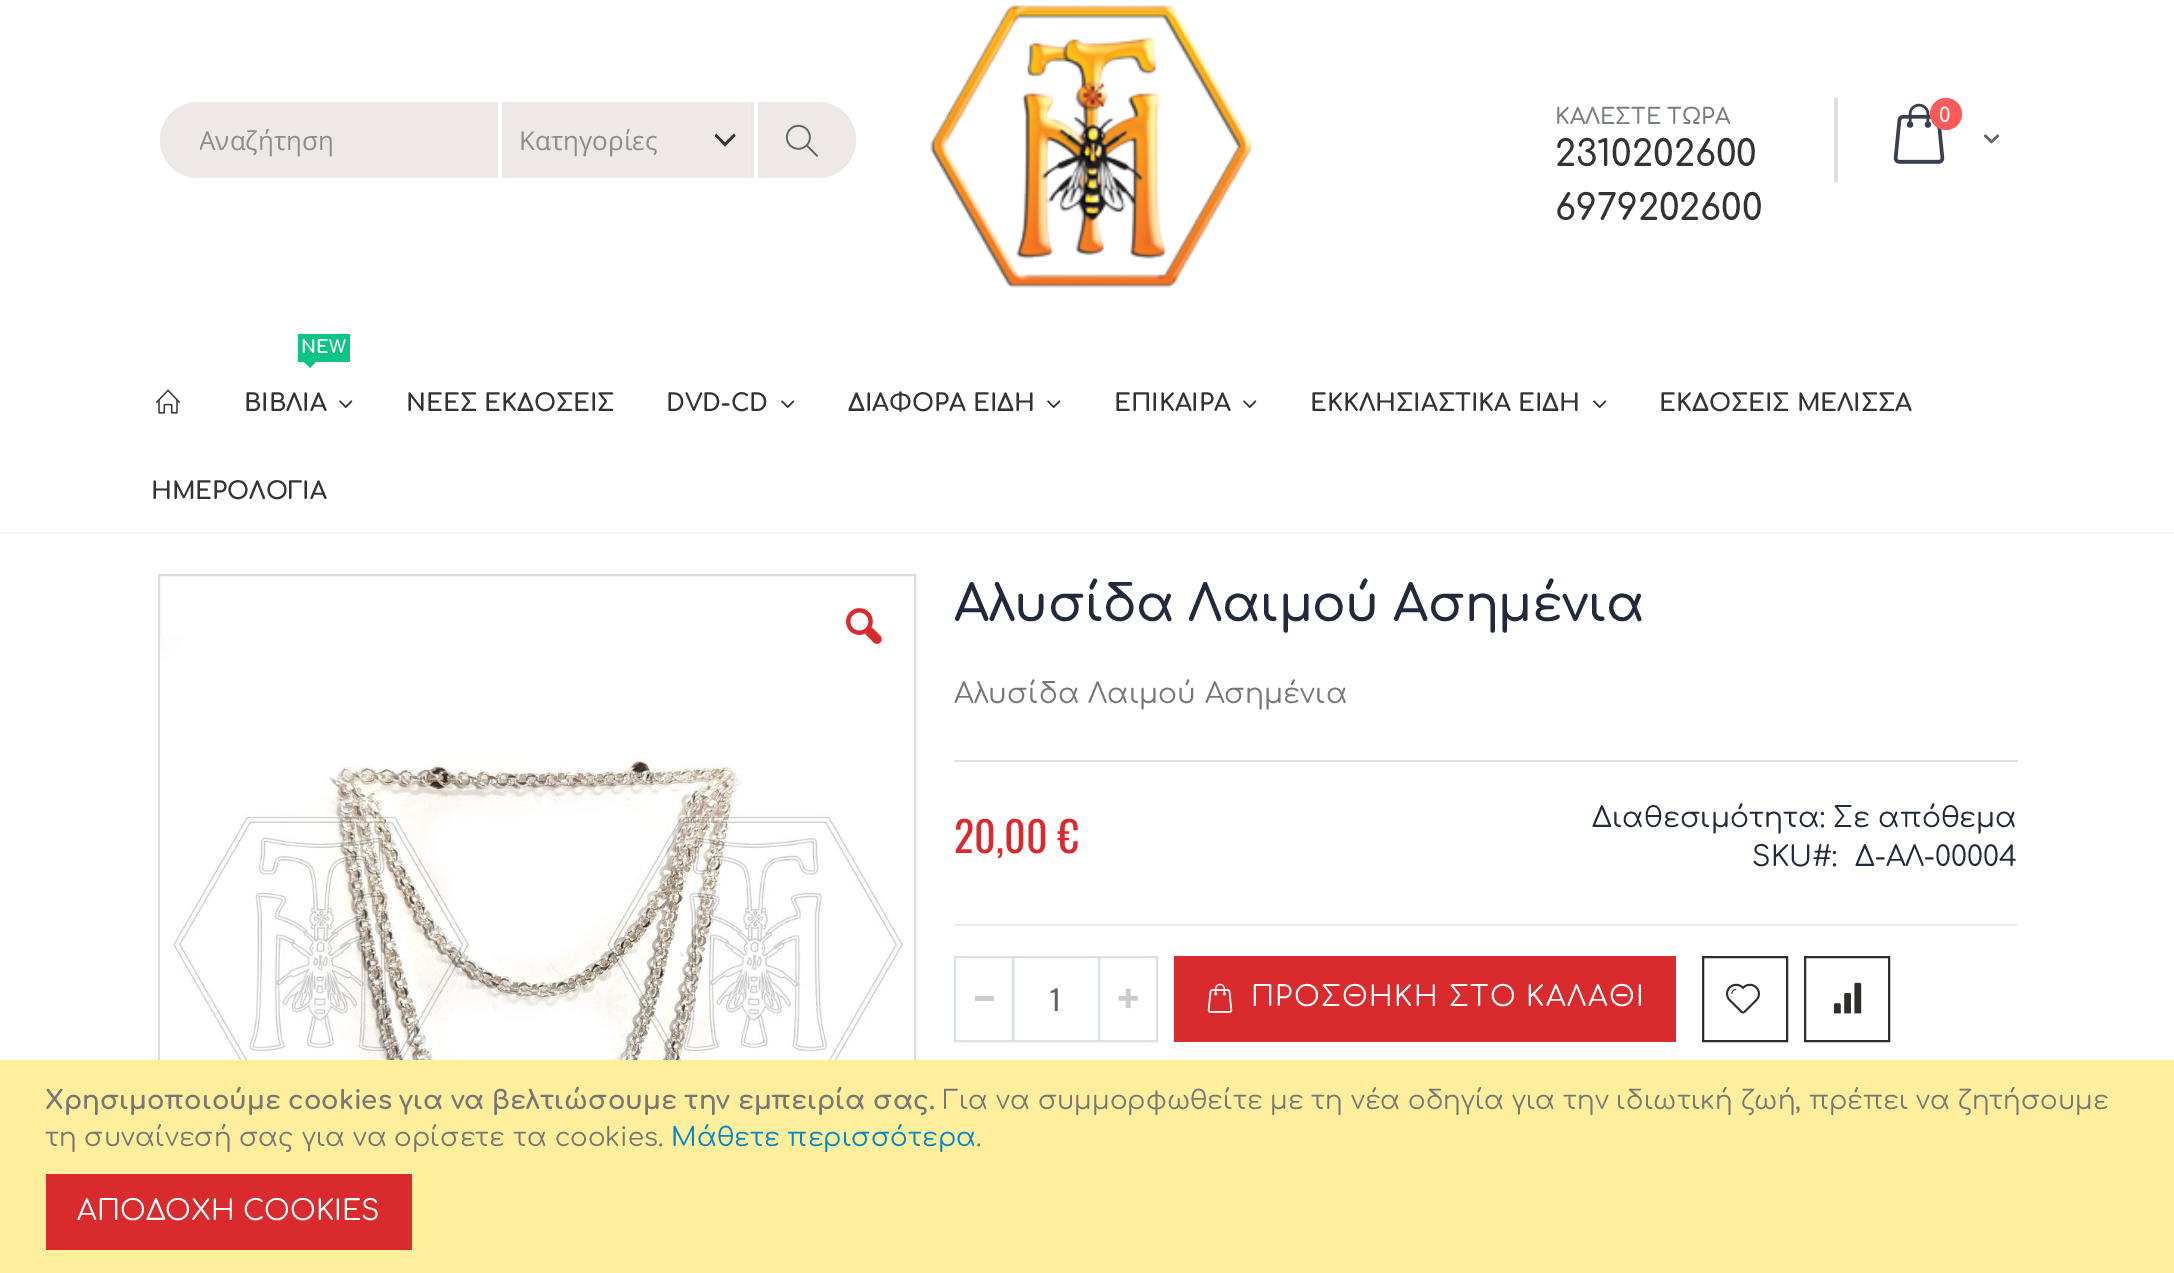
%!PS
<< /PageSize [2174 1273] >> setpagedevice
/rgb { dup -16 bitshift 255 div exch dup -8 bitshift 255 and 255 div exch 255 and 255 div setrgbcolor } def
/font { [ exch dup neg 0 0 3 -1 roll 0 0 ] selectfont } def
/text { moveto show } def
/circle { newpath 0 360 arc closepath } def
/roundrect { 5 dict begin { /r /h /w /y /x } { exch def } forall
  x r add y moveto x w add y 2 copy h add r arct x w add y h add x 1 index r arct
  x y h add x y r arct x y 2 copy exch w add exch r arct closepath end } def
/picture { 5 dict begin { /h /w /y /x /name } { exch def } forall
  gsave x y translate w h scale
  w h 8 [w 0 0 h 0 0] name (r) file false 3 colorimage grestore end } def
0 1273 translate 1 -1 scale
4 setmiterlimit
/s1 { /Comfortaa-SemiBold 22 font 16#787D7F rgb } def
/s2 { /Comfortaa-SemiBold 36 font 16#333333 rgb } def
/s3 { /Comfortaa-SemiBold 20 font 16#FFFFFF rgb } def
/s4 { /OpenSans-Regular 26 font 16#8D8D8D rgb } def
/s5 { /Comfortaa-Bold 18 font 16#FFFFFF rgb } def
/s6 { /Comfortaa-Bold 24 font 16#333333 rgb } def
/s7 { /Comfortaa-Regular 28 font 16#21293C rgb } def
/s8 { /Oswald-Regular 28 font 16#61605A rgb } def
/s9 { /Comfortaa-Bold 26 font 16#777777 rgb } def
/s10 { /Comfortaa-Regular 26 font 16#777777 rgb } def
/s11 { /Comfortaa-Regular 26 font 16#0088CC rgb } def
/s12 { /Comfortaa-Regular 28 font 16#FFFFFF rgb } def
16#FFFFFF rgb
0 0 2174 1273 rectfill
16#F3F3F3 rgb
0 532 2174 2 rectfill
(pic1.raw) 930 5 322 283 picture
16#DDE0E2 rgb
1834 98 4 84 rectfill
s1
(ΚΑΛΕΣΤΕ ΤΩΡΑ) 1555 124 text
s2
(2310202600) 1555 166 text
(6979202600) 1555 220 text
(pic2.raw) 1893 103 52 61 picture
16#FF5B5B rgb
1946 114 16 circle fill
s3
(0) 1939 122 text
(pic3.raw) 1984 134 15 10 picture
16#EEE9E6 rgb
160 102 696 76 38 roundrect fill
16#F1EDEB rgb
748 102 2 76 rectfill
gsave
200 122 556 36 rectclip
s4
(Αναζήτηση) 199 150 text
grestore
16#333333 rgb
725.5 146 moveto 735.5 136 lineto 734 133.5 lineto 725 142.5 lineto 716 133.5 lineto 715 136 lineto 725 146.5 lineto closepath eofill
16#FFFFFF rgb
758 100 moveto 758 180 lineto 754 178 lineto 754 102 lineto closepath fill
498 180 moveto 498 100 lineto 502 102 lineto 502 178 lineto closepath fill
s4
(Κατηγορίες) 519 150 text
(pic4.raw) 785 124 33 33 picture
(pic5.raw) 156 389 24 25 picture
16#0CC485 rgb
298 334 52 28 rectfill
s5
(NEW) 301 353 text
16#0CC485 rgb
304 362 moveto 316 362 lineto 310 368 lineto closepath fill
s6
(ΒΙΒΛΙΑ) 244 411 text
(pic6.raw) 339 400 14 9 picture
(ΝΕΕΣ ΕΚΔΟΣΕΙΣ) 406 411 text
(DVD-CD) 666 411 text
(pic6.raw) 781 400 14 9 picture
(ΔΙΑΦΟΡΑ ΕΙΔΗ) 848 411 text
(pic6.raw) 1047 400 14 9 picture
(ΕΠΙΚΑΙΡΑ) 1114 411 text
(pic6.raw) 1243 400 14 9 picture
(ΕΚΚΛΗΣΙΑΣΤΙΚΑ ΕΙΔΗ) 1310 411 text
(pic6.raw) 1593 400 14 9 picture
(ΕΚΔΟΣΕΙΣ ΜΕΛΙΣΣΑ) 1659 411 text
(ΗΜΕΡΟΛΟΓΙΑ) 151 499 text
16#DDDDDD rgb
2 setlinewidth
159 575 756 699 rectstroke
(pic8.raw) 160 636 744 424 picture
(pic7.raw) 846 608 36 36 picture
/Comfortaa-SemiBold 50 font
16#21293C rgb
954 621 moveto -0.5 0 (Αλυσίδα Λαιμού Ασημένια) ashow
16#DAE2E6 rgb
954 760 1064 2 rectfill
/Comfortaa-Regular 28 font
16#777777 rgb
954 703 moveto 0.1 0 (Αλυσίδα Λαιμού Ασημένια) ashow
16#EBEBEB rgb
954 924 1064 2 rectfill
/Oswald-Regular 42 font
16#D92A2E rgb
954 853 moveto 0.25 0 (20,00 €) ashow
s7
(Διαθεσιμότητα: Σε απόθεμα) 1592 827 text
(SKU#:) 1752 866 text
(Δ-ΑΛ-00004) 1855 866 text
16#DAE2E6 rgb
1013 957 86 84 rectstroke
955 957 58 84 rectstroke
16#CCCCCC rgb
975 996 19 5 rectfill
16#DAE2E6 rgb
1099 957 58 84 rectstroke
(pic9.raw) 1118 988 20 21 picture
s8
(1) 1050 1011 text
16#D92A2E rgb
1174 956 502 86 rectfill
(pic10.raw) 1207 983 26 30 picture
/Comfortaa-Regular 28 font
16#FFFFFF rgb
1251 1006 moveto 1.4 0 (ΠΡΟΣΘΗΚΗ ΣΤΟ ΚΑΛΑΘΙ) ashow
16#302E2A rgb
1703 957 84 84 rectstroke
(pic11.raw) 1726 983 34 31 picture
1805 957 84 84 rectstroke
(pic12.raw) 1834 982 28 32 picture
16#FFEE9C rgb
0 1060 2174 213 rectfill
s9
(Χρησιμοποιούμε cookies για να βελτιώσουμε την εμπειρία σας.) 45 1109 text
s10
(Για να συμμορφωθείτε με τη νέα οδηγία για την ιδιωτική ζωή, πρέπει να ζητήσουμε) 943 1109 text
(τη συναίνεσή σας για να ορίσετε τα cookies.) 45 1146 text
s11
(Μάθετε περισσότερα) 671 1146 text
s10
(.) 976 1146 text
16#D92A2E rgb
46 1174 366 76 rectfill
s12
(ΑΠΟΔΟΧΗ COOKIES) 77 1220 text
showpage
